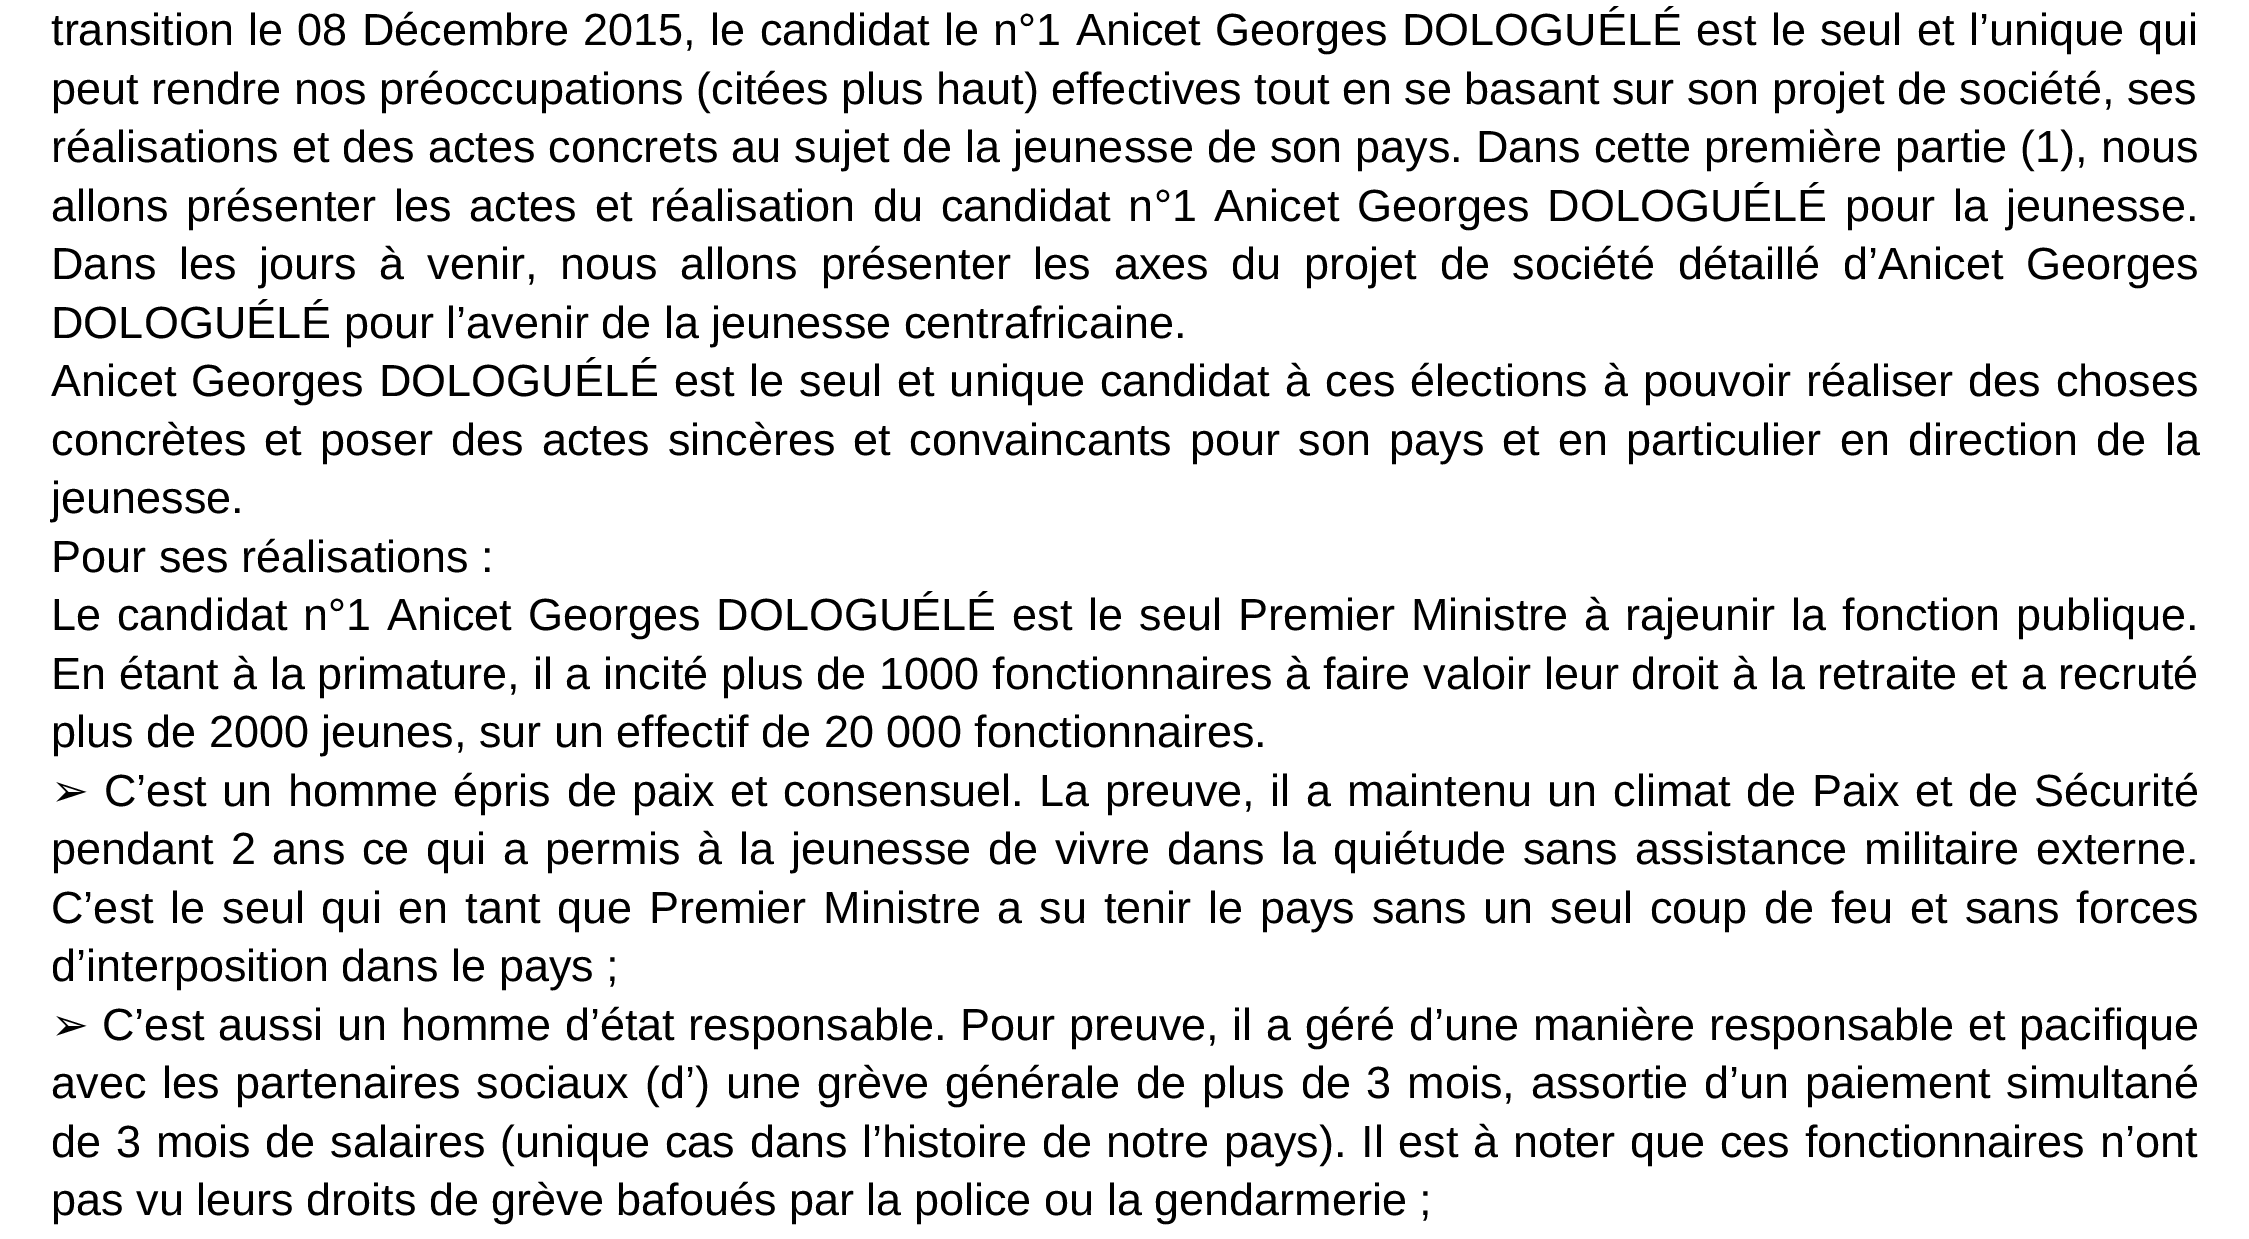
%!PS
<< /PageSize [2249 1239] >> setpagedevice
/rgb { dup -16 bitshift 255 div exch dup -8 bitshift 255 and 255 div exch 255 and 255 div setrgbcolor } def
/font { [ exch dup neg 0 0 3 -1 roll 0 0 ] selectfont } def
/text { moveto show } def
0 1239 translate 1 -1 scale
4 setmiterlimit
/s1 { /LiberationSans-Regular 45 font 16#000000 rgb } def
/s2 { /DejaVuSans-Regular 45 font 16#000000 rgb } def
16#FFFFFF rgb
0 0 2249 1239 rectfill
/LiberationSans-Regular 45 font
16#000000 rgb
51 45 moveto 1.8 0 32 (transition le 08 Décembre 2015, le candidat le n°1 Anicet Georges DOLOGUÉLÉ est le seul et l’unique qui) widthshow
(peut rendre nos préoccupations \(citées plus haut\) effectives tout en se basant sur son projet de société, ses) 51 104 text
51 162 moveto 0.5 0 32 (réalisations et des actes concrets au sujet de la jeunesse de son pays. Dans cette première partie \(1\), nous) widthshow
51 221 moveto 5.25 0 32 (allons présenter les actes et réalisation du candidat n°1 Anicet Georges DOLOGUÉLÉ pour la jeunesse.) widthshow
51 279 moveto 10.25 0 32 (Dans les jours à venir, nous allons présenter les axes du projet de société détaillé d’Anicet Georges) widthshow
(DOLOGUÉLÉ pour l’avenir de la jeunesse centrafricaine.) 51 338 text
51 396 moveto 2.6 0 32 (Anicet Georges DOLOGUÉLÉ est le seul et unique candidat à ces élections à pouvoir réaliser des choses) widthshow
51 455 moveto 5.75 0 32 (concrètes et poser des actes sincères et convaincants pour son pays et en particulier en direction de la) widthshow
(jeunesse.) 51 513 text
(Pour ses réalisations :) 51 572 text
51 630 moveto 3.4 0 32 (Le candidat n°1 Anicet Georges DOLOGUÉLÉ est le seul Premier Ministre à rajeunir la fonction publique.) widthshow
51 689 moveto 0.3 0 32 (En étant à la primature, il a incité plus de 1000 fonctionnaires à faire valoir leur droit à la retraite et a recruté) widthshow
(plus de 2000 jeunes, sur un effectif de 20 000 fonctionnaires.) 51 747 text
s2
(➢) 51 806 text
/LiberationSans-Regular 45 font
104 806 moveto 3.1 0 32 (C’est un homme épris de paix et consensuel. La preuve, il a maintenu un climat de Paix et de Sécurité) widthshow
51 864 moveto 4.4 0 32 (pendant 2 ans ce qui a permis à la jeunesse de vivre dans la quiétude sans assistance militaire externe.) widthshow
51 923 moveto 4.3 0 32 (C’est le seul qui en tant que Premier Ministre a su tenir le pays sans un seul coup de feu et sans forces) widthshow
(d’interposition dans le pays ;) 51 981 text
s2
(➢) 51 1040 text
/LiberationSans-Regular 45 font
102 1040 moveto 1.25 0 32 (C’est aussi un homme d’état responsable. Pour preuve, il a géré d’une manière responsable et pacifique) widthshow
51 1098 moveto 3.4 0 32 (avec les partenaires sociaux \(d’\) une grève générale de plus de 3 mois, assortie d’un paiement simultané) widthshow
51 1157 moveto 2.25 0 32 (de 3 mois de salaires \(unique cas dans l’histoire de notre pays\). Il est à noter que ces fonctionnaires n’ont) widthshow
(pas vu leurs droits de grève bafoués par la police ou la gendarmerie ;) 51 1215 text
showpage
